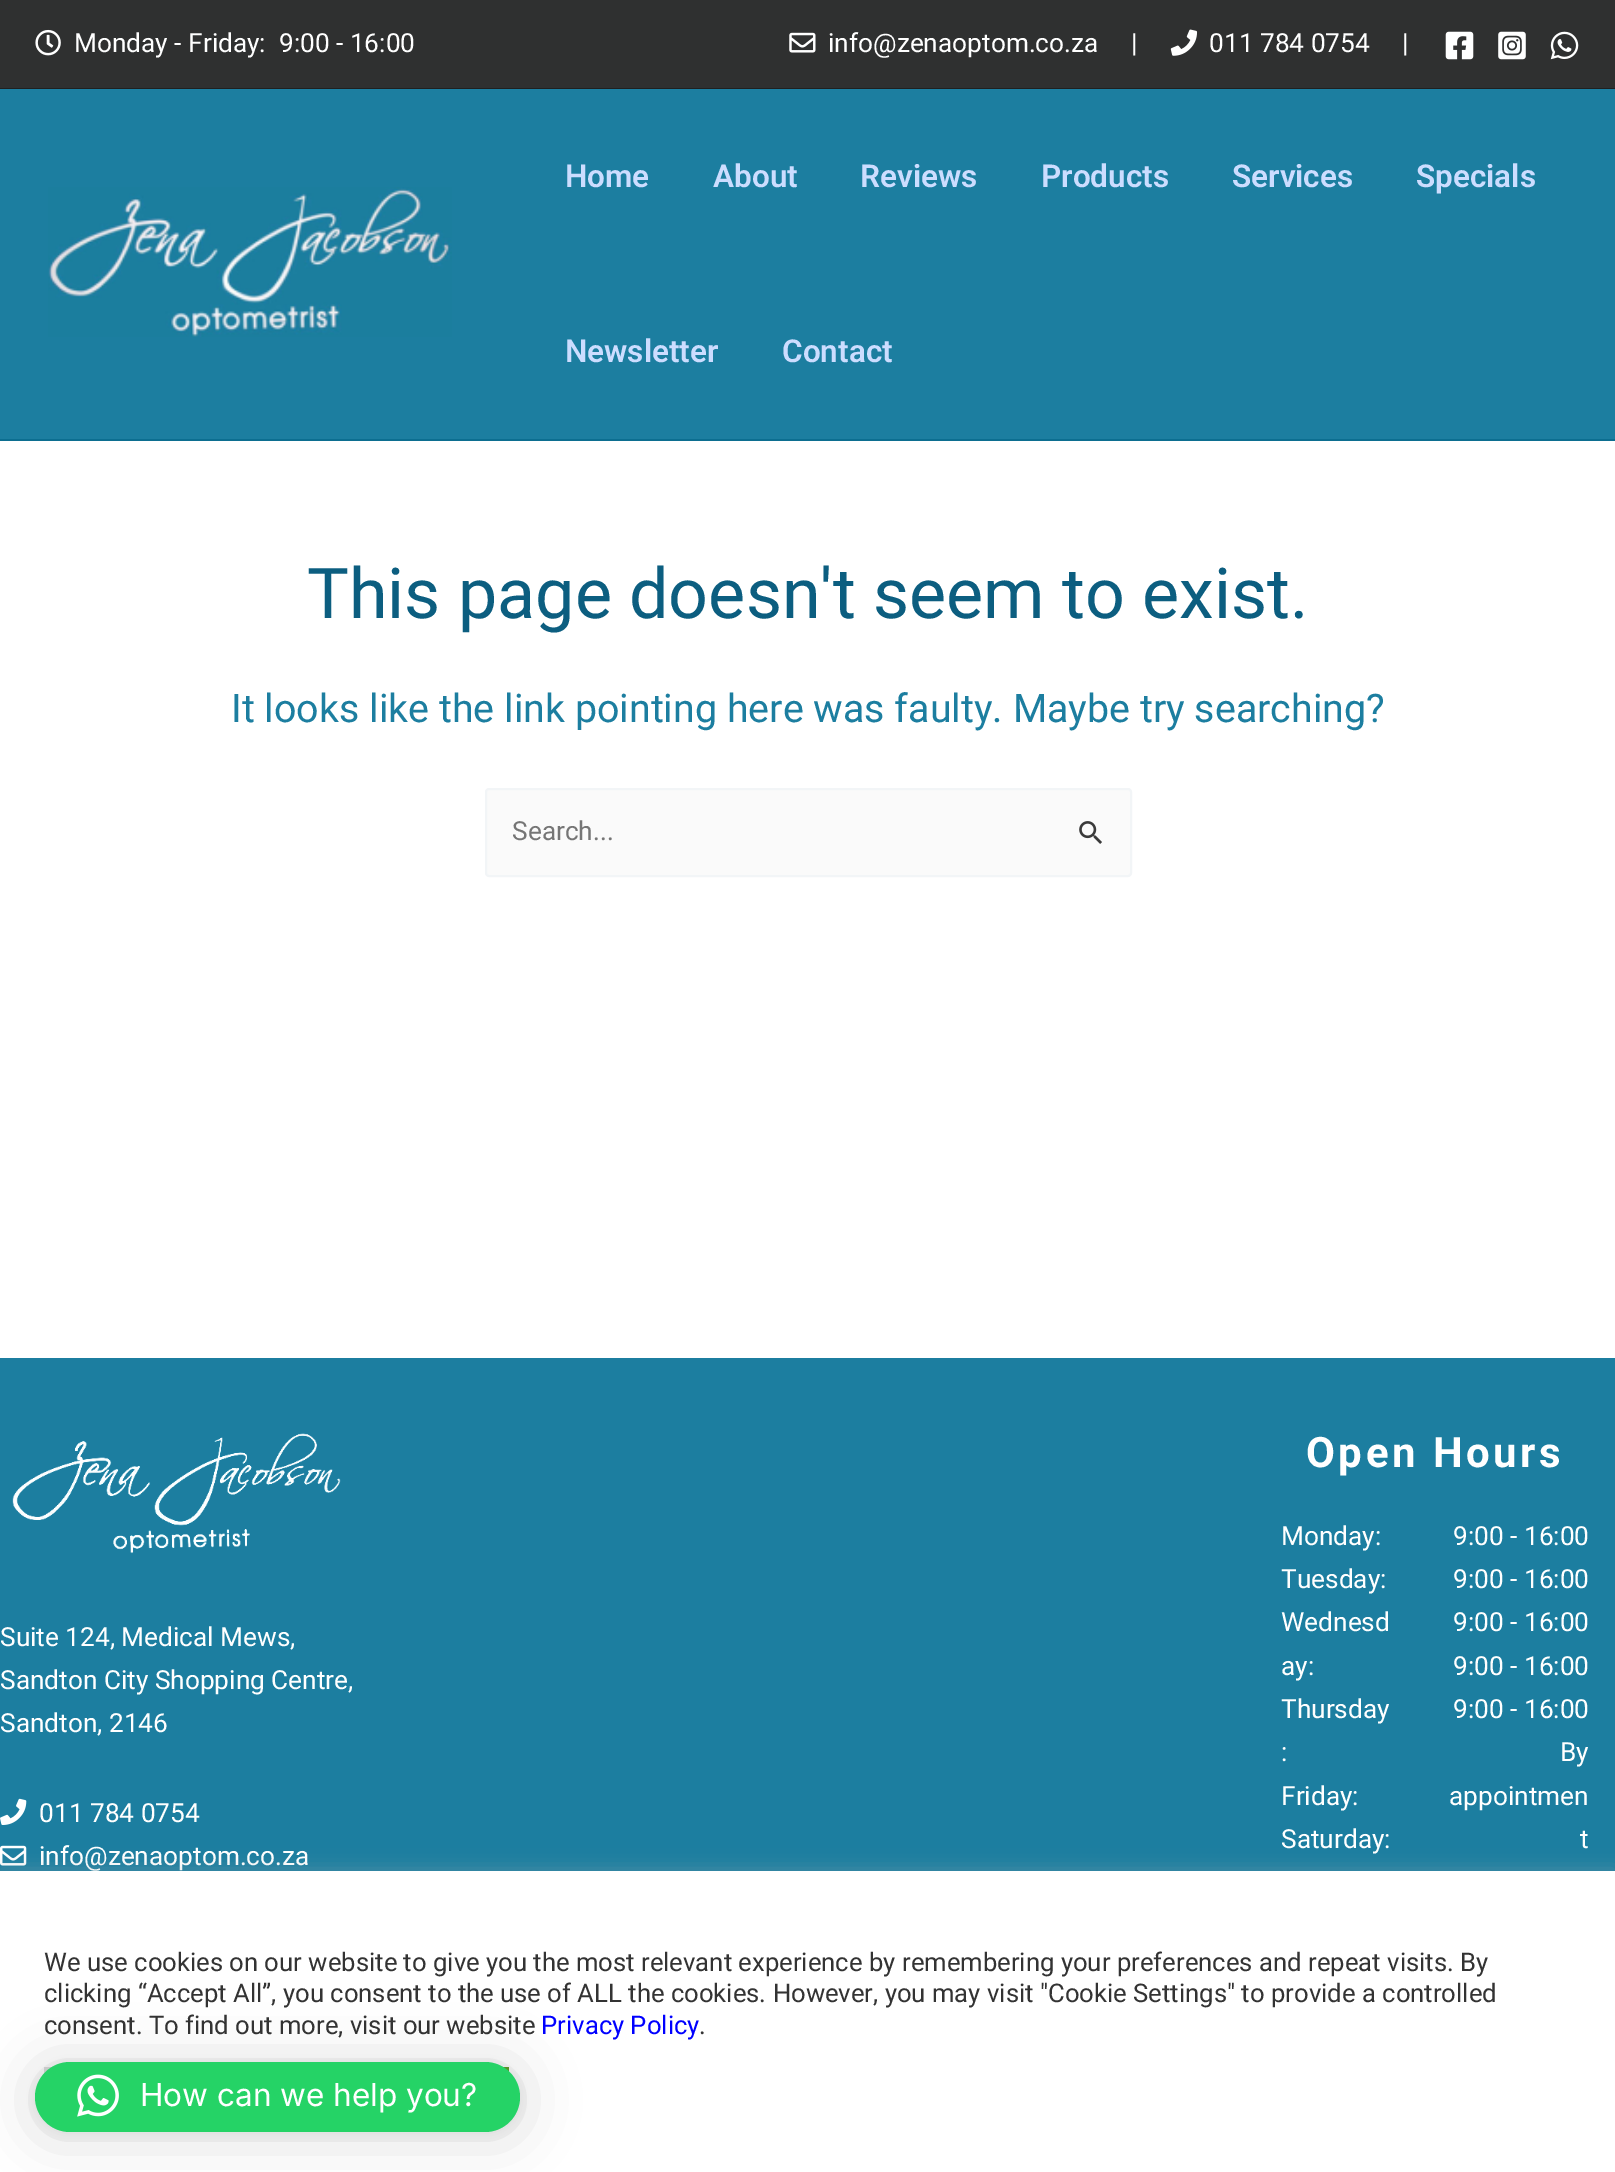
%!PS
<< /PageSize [1615 2172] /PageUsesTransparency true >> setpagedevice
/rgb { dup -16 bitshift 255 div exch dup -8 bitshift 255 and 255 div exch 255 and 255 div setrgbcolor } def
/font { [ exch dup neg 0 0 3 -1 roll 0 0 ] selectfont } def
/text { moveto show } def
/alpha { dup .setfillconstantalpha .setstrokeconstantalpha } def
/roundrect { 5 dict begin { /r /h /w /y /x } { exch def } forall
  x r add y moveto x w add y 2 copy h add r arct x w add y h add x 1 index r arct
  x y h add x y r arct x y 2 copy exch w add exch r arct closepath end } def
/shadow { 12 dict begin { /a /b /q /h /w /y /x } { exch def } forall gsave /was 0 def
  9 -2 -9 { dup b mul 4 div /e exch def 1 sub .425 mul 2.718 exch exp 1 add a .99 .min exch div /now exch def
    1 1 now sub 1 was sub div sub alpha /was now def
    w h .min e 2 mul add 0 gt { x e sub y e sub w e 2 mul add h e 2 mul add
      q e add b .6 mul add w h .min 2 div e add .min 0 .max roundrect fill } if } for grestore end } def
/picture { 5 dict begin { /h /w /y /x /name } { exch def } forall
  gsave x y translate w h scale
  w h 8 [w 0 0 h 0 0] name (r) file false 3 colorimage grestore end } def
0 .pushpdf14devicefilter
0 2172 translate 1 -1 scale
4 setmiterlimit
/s1 { /Roboto-Regular 26.25 font 16#FFFFFF rgb } def
/s2 { /Roboto-SemiBold 31.5 font 16#CCDDFF rgb } def
/s3 { /Roboto-Regular 70 font 16#0C5E80 rgb } def
/s4 { /Roboto-Regular 39.4 font 16#1C7EA0 rgb } def
/s5 { /Roboto-Regular 26.25 font 16#757575 rgb } def
/s6 { /Roboto-Regular 25.67 font 16#333333 rgb } def
/s7 { /Roboto-Regular 25.67 font 16#0000FF rgb } def
/s8 { /Inter-Regular 31.5 font 16#FFFFFF rgb } def
16#FFFFFF rgb
0 0 1615 2172 rectfill
16#2F3030 rgb
0 0 1615 88 rectfill
16#1F2020 rgb
0 88 1615 1 rectfill
(pic1.raw) 35 29 26 27 picture
s1
(Monday - Friday:  9:00 - 16:00) 74 52 text
(pic2.raw) 789 32 27 21 picture
(info@zenaoptom.co.za) 828 52 text
(|) 1131 52 text
(pic3.raw) 1170 29 28 27 picture
(011 784 0754) 1209 52 text
(|) 1402 52 text
(pic4.raw) 1445 31 29 29 picture
(pic5.raw) 1498 31 28 29 picture
(pic6.raw) 1550 31 29 29 picture
16#1C7EA0 rgb
0 89 1615 350 rectfill
16#0C6E90 rgb
0 439 1615 2 rectfill
(pic7.raw) 48 187 404 150 picture
s2
(Home) 565 187 text
(About) 713 187 text
(Reviews) 860 187 text
(Products) 1041 187 text
(Services) 1232 187 text
(Specials) 1416 187 text
(Newsletter) 565 362 text
(Contact) 782 362 text
s3
(This page doesn't seem to exist.) 307 618 text
s4
(It looks like the link pointing here was faulty. Maybe try searching?) 231 722 text
16#FAFAFA rgb
486 789 645 87 3 roundrect gsave fill grestore
16#F2F5F7 rgb
2 setlinewidth
stroke
s5
(Search...) 512 840 text
(pic8.raw) 1079 821 23 23 picture
16#1C7EA0 rgb
0 1358 1615 513 rectfill
(pic9.raw) 12 1433 329 121 picture
s1
(Suite 124, Medical Mews,) 0 1646 text
(Sandton City Shopping Centre,) 0 1689 text
(Sandton, 2146) 0 1732 text
(pic10.raw) 0 1798 27 27 picture
(011 784 0754) 39 1822 text
(pic11.raw) 0 1845 27 21 picture
(info@zenaoptom.co.za) 39 1865 text
/Roboto-Bold 42 font
1306 1467 moveto 3.5 0 (Open Hours) ashow
s1
(Monday:) 1281 1545 text
(Tuesday:) 1281 1588 text
(Wednesd) 1281 1631 text
(ay:) 1281 1675 text
(Thursday) 1281 1718 text
(:) 1281 1761 text
(Friday:) 1281 1805 text
(Saturday:) 1281 1848 text
(9:00 - 16:00) 1453 1545 text
(9:00 - 16:00) 1453 1588 text
(9:00 - 16:00) 1453 1631 text
(9:00 - 16:00) 1453 1675 text
(9:00 - 16:00) 1453 1718 text
(By) 1560 1761 text
(appointmen) 1449 1805 text
(t) 1580 1848 text
16#ACABAB rgb
0 1869 1615 303 0 9 0.3 shadow
16#FFFFFF rgb
0 1871 1615 301 rectfill
s6
(We use cookies on our website to give you the most relevant experience by remembering your preferences and repeat visits. By) 44 1971 text
(clicking “Accept All”, you consent to the use of ALL the cookies. However, you may visit "Cookie Settings" to provide a controlled) 44 2002 text
(consent. To find out more, visit our website) 44 2034 text
s7
(Privacy Policy) 541 2034 text
s6
(.) 699 2034 text
16#DEDFE0 rgb
44 2067 8 54 rectfill
16#61A229 rgb
503 2067 6 5 rectfill
16#000000 rgb
35 2065 485 70 35 28 0.16 shadow
35 2063 485 70 35 5 0.06 shadow
16#25D366 rgb
35 2062 485 70 35 roundrect fill
(pic12.raw) 77 2074 42 43 picture
s8
(How can we help you?) 140 2106 text
.poppdf14devicefilter showpage
